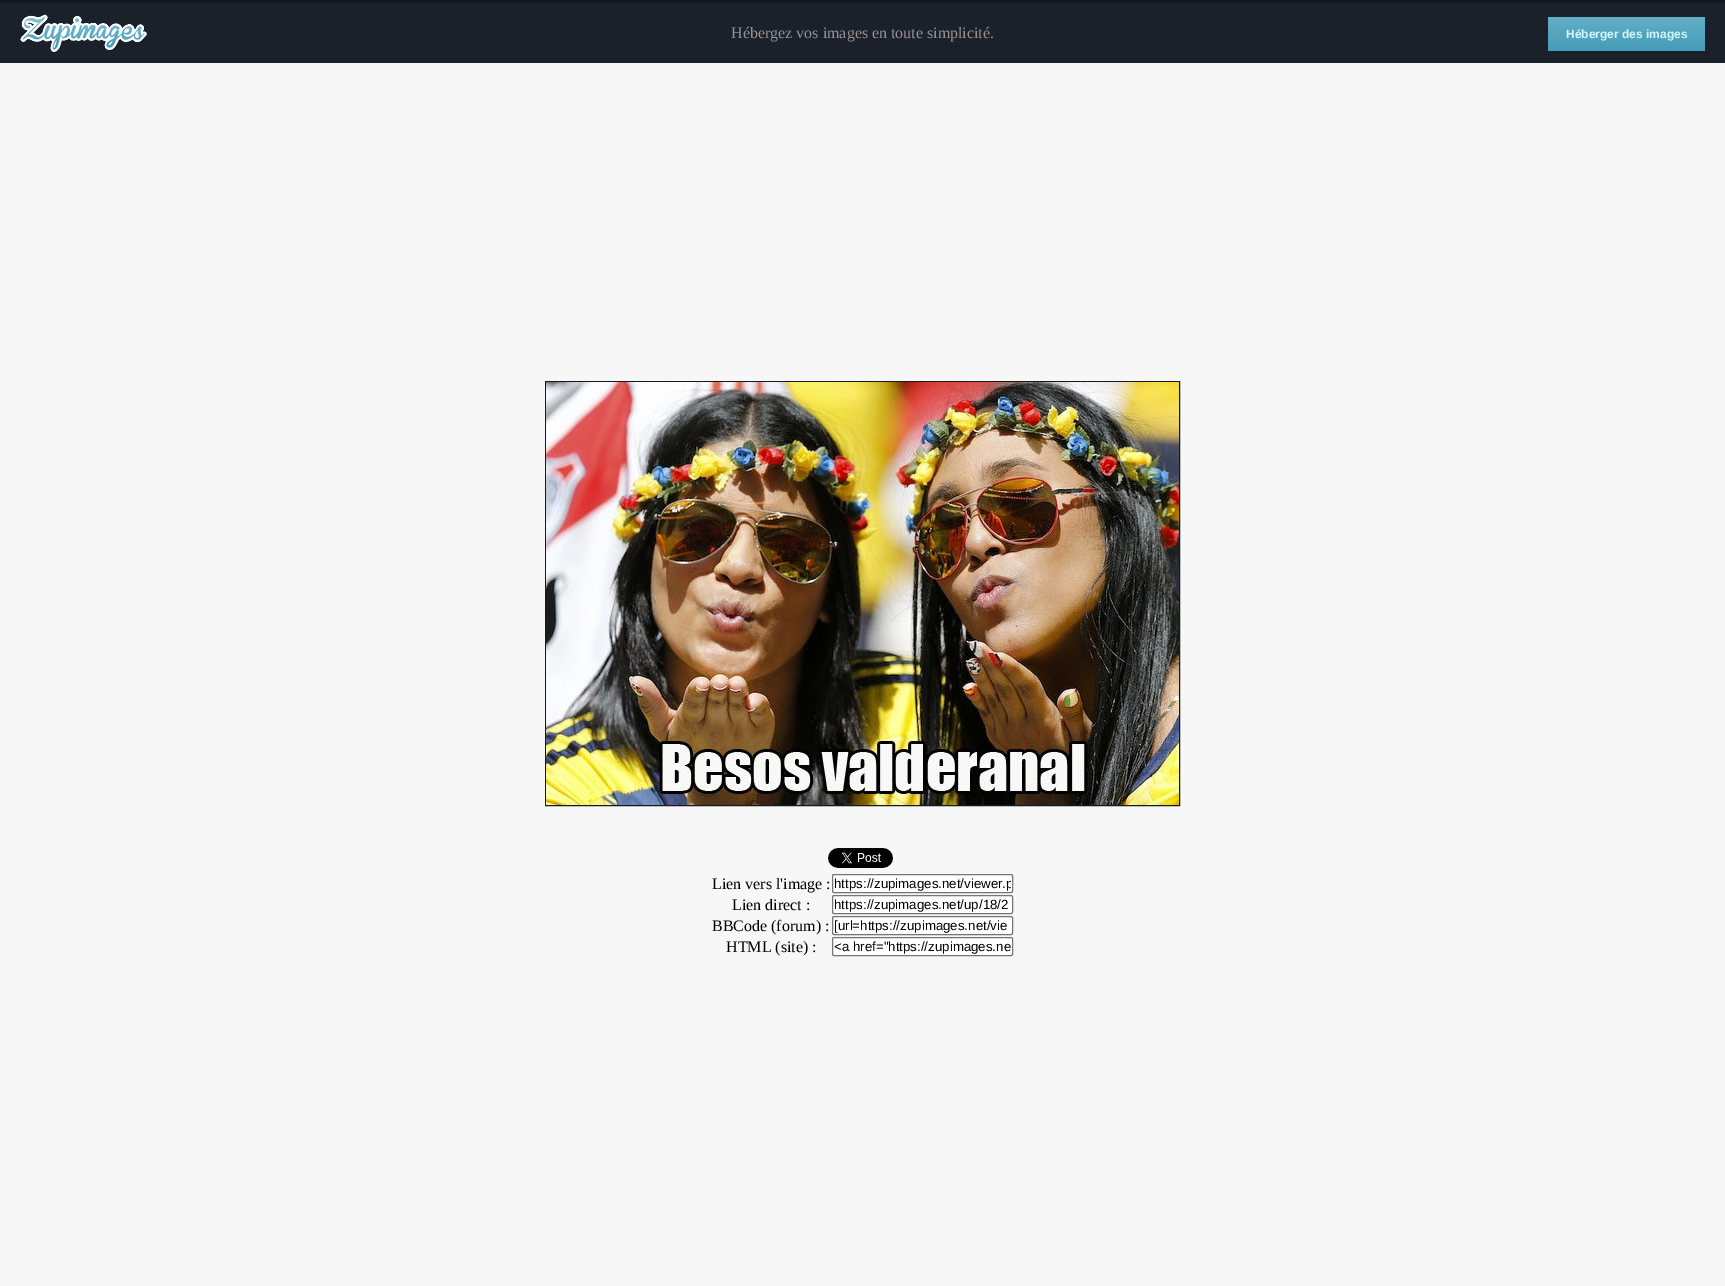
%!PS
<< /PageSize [1725 1286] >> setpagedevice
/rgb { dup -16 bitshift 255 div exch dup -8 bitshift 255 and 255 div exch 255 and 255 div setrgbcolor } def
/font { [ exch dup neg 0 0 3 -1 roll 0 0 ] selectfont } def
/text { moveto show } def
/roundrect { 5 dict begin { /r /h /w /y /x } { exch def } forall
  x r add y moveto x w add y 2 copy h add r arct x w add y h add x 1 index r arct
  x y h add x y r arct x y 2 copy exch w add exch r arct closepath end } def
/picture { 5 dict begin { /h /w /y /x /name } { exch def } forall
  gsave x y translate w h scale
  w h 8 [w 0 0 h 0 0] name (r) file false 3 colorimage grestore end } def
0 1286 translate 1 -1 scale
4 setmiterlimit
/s1 { /LiberationSerif-Regular 16 font 16#969191 rgb } def
/s2 { /LiberationSans-Bold 12 font 16#D3F7FF rgb } def
/s3 { /LiberationSerif-Regular 16 font 16#000000 rgb } def
/s4 { /LiberationSans-Regular 13.3 font 16#000000 rgb } def
16#F7F7F7 rgb
0 0 1725 1286 rectfill
16#1B212B rgb
0 3 1725 60 rectfill
16#141921 rgb
0 0 1725 3 rectfill
(pic1.raw) 20 14 127 39 picture
s1
(Hébergez vos images en toute simplicité.) 731 38 text
gsave 1548 17 157 34 3 roundrect clip newpath
<< /ShadingType 2 /ColorSpace /DeviceRGB /Coords [1627 17 1627 51] /Extend [true true] /Function << /FunctionType 2 /Domain [0 1] /C0 [0.384 0.682 0.773] /C1 [0.278 0.612 0.725] /N 1 >> >> shfill grestore
s2
(Héberger des images) 1566 38 text
16#141921 rgb
545.5 381.5 634 424 rectstroke
(pic2.raw) 546 382 633 423 picture
(pic3.raw) 828 848 65 20 picture
s3
(Lien vers l'image :) 712 889 text
16#FFFFFF rgb
832.5 874.5 180 18 1.5 roundrect gsave fill grestore
16#767676 rgb
stroke
gsave
834 876 177 15 rectclip
s4
(https://zupimages.net/viewer.p) 834 888 text
grestore
s3
(Lien direct :) 732 910 text
16#FFFFFF rgb
832.5 895.5 180 18 1.5 roundrect gsave fill grestore
16#767676 rgb
stroke
s4
(https://zupimages.net/up/18/2) 834 909 text
s3
(BBCode \(forum\) :) 712 931 text
16#FFFFFF rgb
832.5 916.5 180 18 1.5 roundrect gsave fill grestore
16#767676 rgb
stroke
s4
([url=https://zupimages.net/vie) 834 930 text
s3
(HTML \(site\) :) 726 952 text
16#FFFFFF rgb
832.5 937.5 180 18 1.5 roundrect gsave fill grestore
16#767676 rgb
stroke
s4
(<a href="https://zupimages.ne) 834 951 text
showpage
